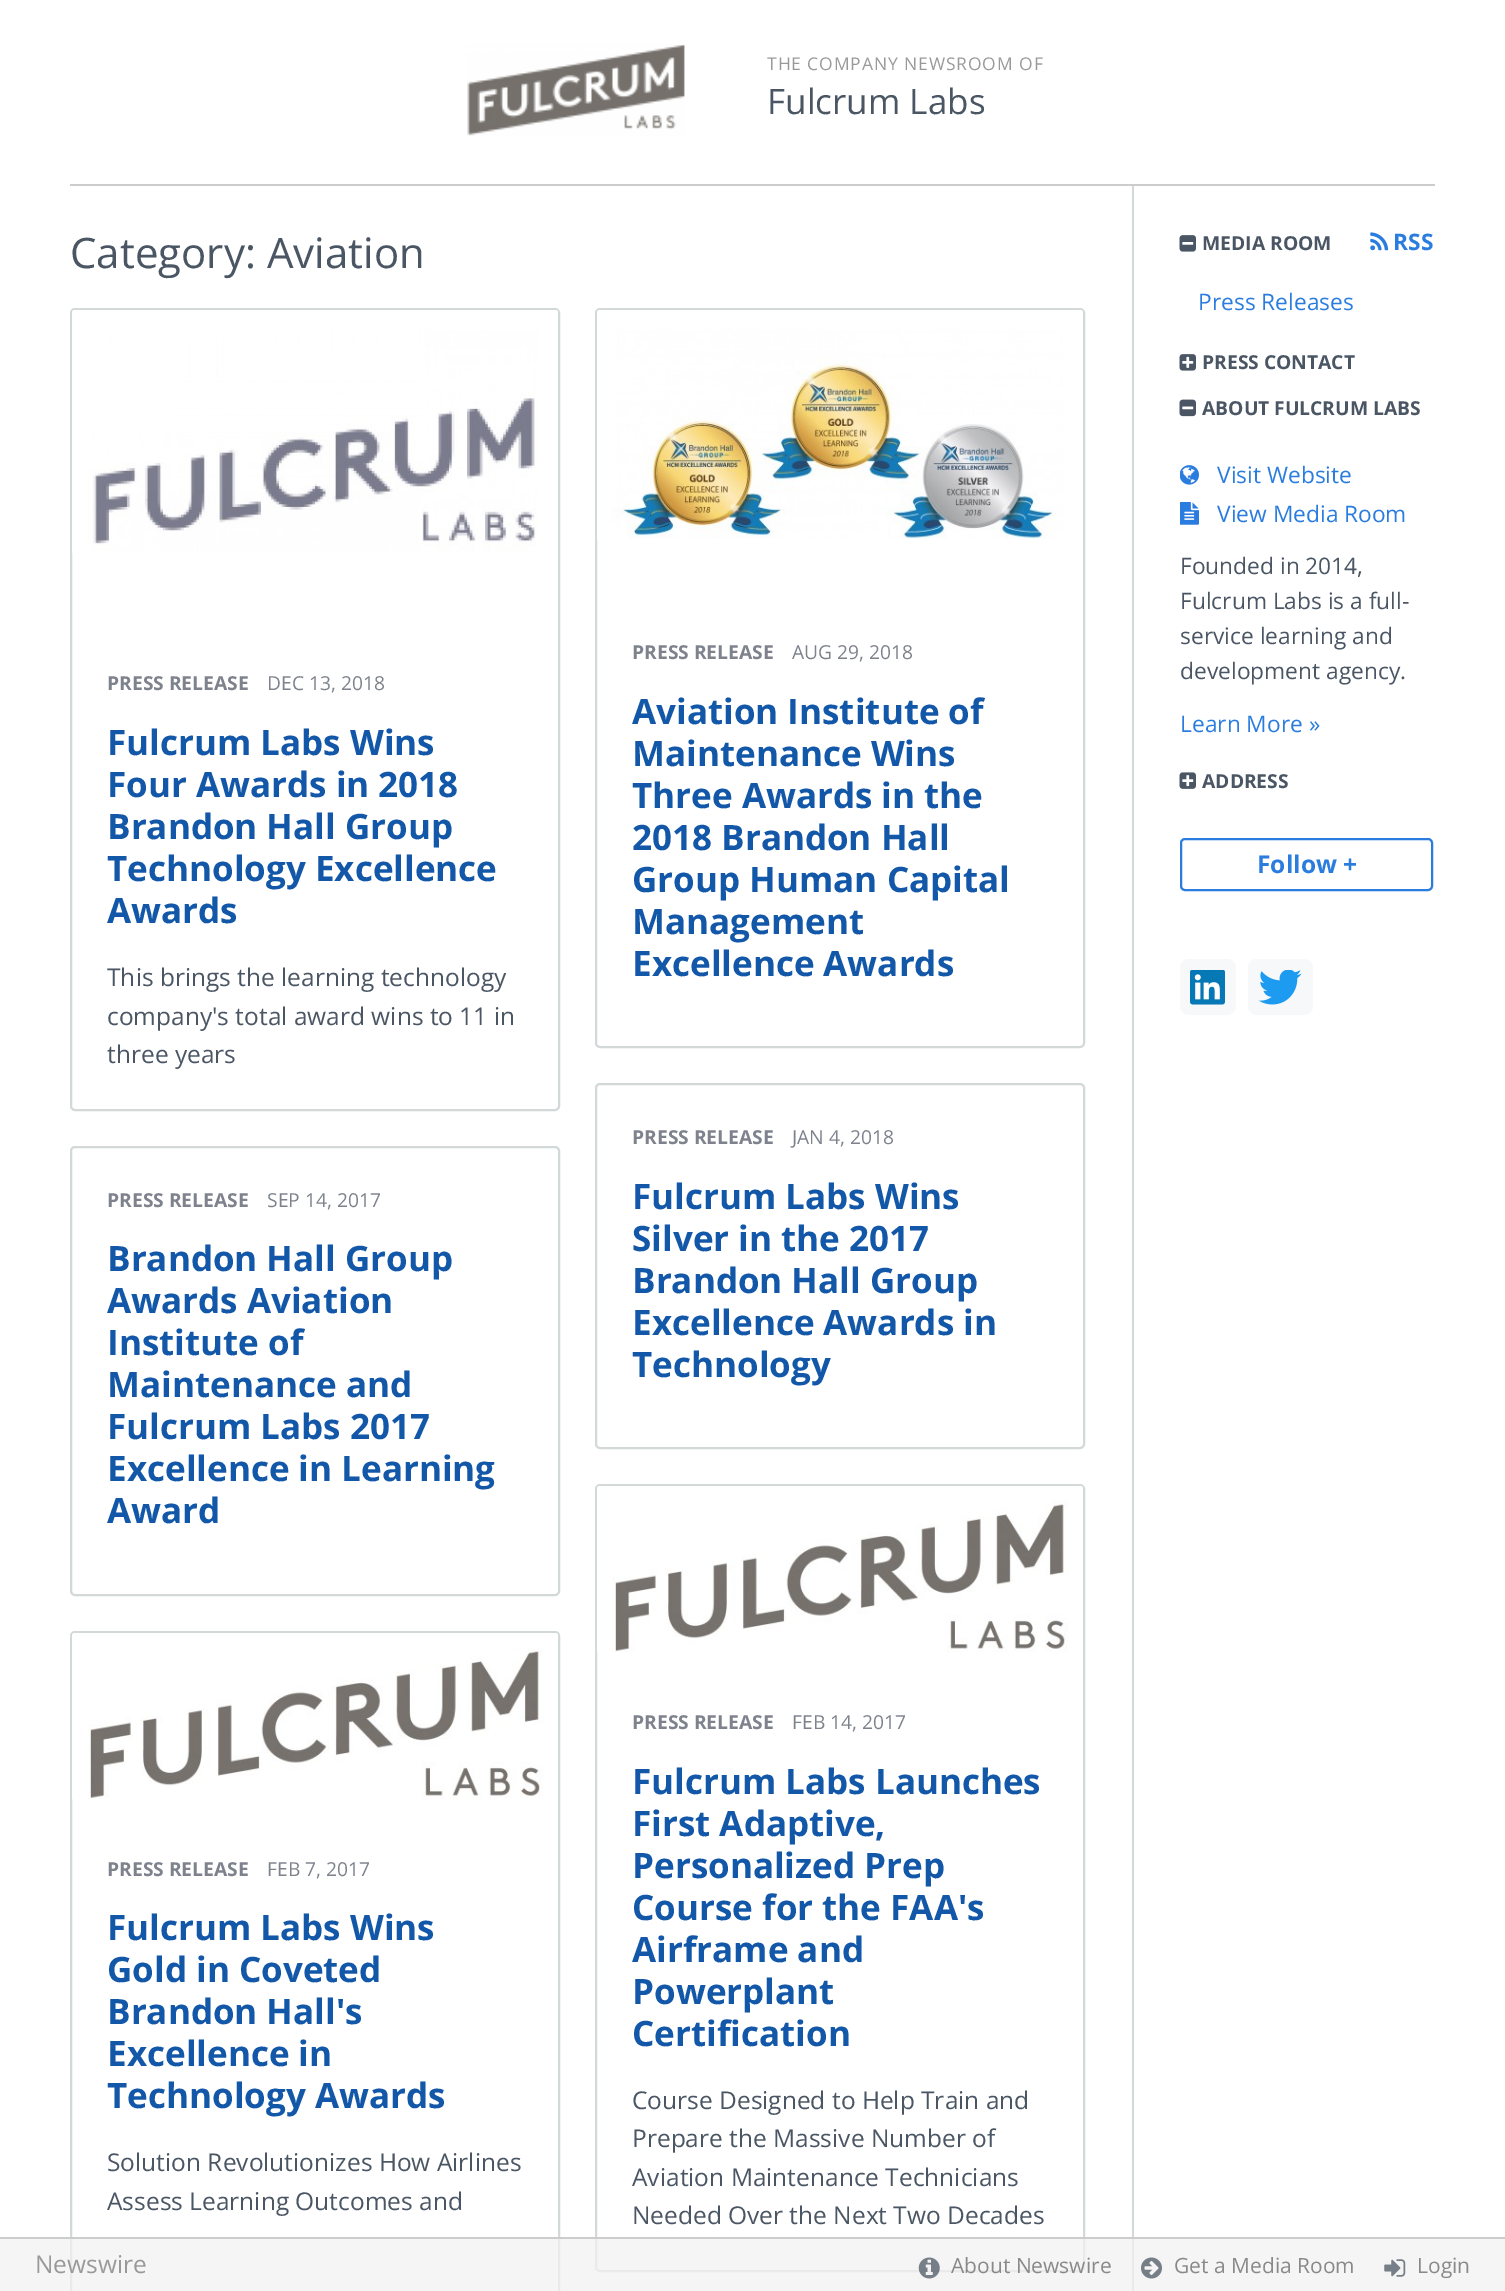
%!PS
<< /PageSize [1505 2291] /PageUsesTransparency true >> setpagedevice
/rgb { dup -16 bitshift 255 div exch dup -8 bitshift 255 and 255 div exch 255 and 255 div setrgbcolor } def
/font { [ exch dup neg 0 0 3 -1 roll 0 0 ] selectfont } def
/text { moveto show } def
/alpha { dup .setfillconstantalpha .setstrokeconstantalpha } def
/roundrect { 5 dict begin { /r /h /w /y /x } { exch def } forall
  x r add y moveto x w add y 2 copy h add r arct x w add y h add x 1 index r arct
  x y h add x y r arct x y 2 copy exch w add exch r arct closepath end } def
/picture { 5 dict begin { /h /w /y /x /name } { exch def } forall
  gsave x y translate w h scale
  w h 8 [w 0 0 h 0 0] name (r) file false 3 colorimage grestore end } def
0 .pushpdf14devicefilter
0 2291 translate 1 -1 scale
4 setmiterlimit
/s1 { /OpenSans-Regular 35 font 16#4B5664 rgb } def
/s2 { /OpenSans-Regular 42 font 16#4B5664 rgb } def
/s3 { /OpenSans-Bold 19.25 font 16#7D828C rgb } def
/s4 { /OpenSans-Regular 19.25 font 16#7D828C rgb } def
/s5 { /OpenSans-Bold 35 font 16#1357A8 rgb } def
/s6 { /OpenSans-Regular 24.5 font 16#4B5664 rgb } def
/s7 { /OpenSans-Bold 19.25 font 16#4B5664 rgb } def
/s8 { /OpenSans-Bold 22.75 font 16#2A7DDF rgb } def
/s9 { /OpenSans-Regular 22.75 font 16#2A7DDF rgb } def
/s10 { /OpenSans-Regular 22.75 font 16#4B5664 rgb } def
/s11 { /OpenSans-Bold 24.5 font 16#2A7DDF rgb } def
/s12 { /OpenSans-Regular 24.5 font 16#999999 rgb } def
/s13 { /OpenSans-Regular 21 font 16#898989 rgb } def
16#FFFFFF rgb
0 0 1505 2291 rectfill
16#CCCCCC rgb
70 184 1365 2 rectfill
(pic1.raw) 467 44 218 92 picture
/OpenSans-Regular 17.5 font
16#999999 rgb
767 70 moveto 0.9 0 (THE COMPANY NEWSROOM OF) ashow
s1
(Fulcrum Labs) 767 114 text
16#D3D8D9 rgb
1132 186 2 2105 rectfill
s2
(Category: Aviation) 70 268 text
16#D3D8D9 rgb
2 setlinewidth
71 309 488 801 4 roundrect stroke
(pic2.raw) 72 310 486 243 picture
s3
(PRESS RELEASE) 107 690 text
s4
(DEC 13, 2018) 267 690 text
s5
(Fulcrum Labs Wins) 107 755 text
(Four Awards in 2018) 107 797 text
(Brandon Hall Group) 107 839 text
(Technology Excellence) 107 881 text
(Awards) 107 923 text
s6
(This brings the learning technology) 107 986 text
(company's total award wins to 11 in) 107 1025 text
(three years) 107 1063 text
16#D3D8D9 rgb
71 1147 488 448 4 roundrect stroke
s3
(PRESS RELEASE) 107 1207 text
s4
(SEP 14, 2017) 267 1207 text
s5
(Brandon Hall Group) 107 1271 text
(Awards Aviation) 107 1313 text
(Institute of) 107 1355 text
(Maintenance and) 107 1397 text
(Fulcrum Labs 2017) 107 1439 text
(Excellence in Learning) 107 1481 text
(Award) 107 1523 text
16#D3D8D9 rgb
71 1632 488 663 4 roundrect stroke
(pic3.raw) 72 1633 486 166 picture
s3
(PRESS RELEASE) 107 1876 text
s4
(FEB 7, 2017) 267 1876 text
s5
(Fulcrum Labs Wins) 107 1940 text
(Gold in Coveted) 107 1982 text
(Brandon Hall's) 107 2024 text
(Excellence in) 107 2066 text
(Technology Awards) 107 2108 text
s6
(Solution Revolutionizes How Airlines) 107 2171 text
(Assess Learning Outcomes and) 107 2210 text
16#D3D8D9 rgb
596 309 488 738 4 roundrect stroke
(pic4.raw) 597 310 486 229 picture
s3
(PRESS RELEASE) 632 659 text
s4
(AUG 29, 2018) 792 659 text
s5
(Aviation Institute of) 632 724 text
(Maintenance Wins) 632 766 text
(Three Awards in the) 632 808 text
(2018 Brandon Hall) 632 850 text
(Group Human Capital) 632 892 text
(Management) 632 934 text
(Excellence Awards) 632 976 text
16#D3D8D9 rgb
596 1084 488 364 4 roundrect stroke
s3
(PRESS RELEASE) 632 1144 text
s4
(JAN 4, 2018) 792 1144 text
s5
(Fulcrum Labs Wins) 632 1209 text
(Silver in the 2017) 632 1251 text
(Brandon Hall Group) 632 1293 text
(Excellence Awards in) 632 1335 text
(Technology) 632 1377 text
16#D3D8D9 rgb
596 1485 488 786 4 roundrect stroke
(pic3.raw) 597 1486 486 166 picture
s3
(PRESS RELEASE) 632 1729 text
s4
(FEB 14, 2017) 792 1729 text
s5
(Fulcrum Labs Launches) 632 1794 text
(First Adaptive,) 632 1836 text
(Personalized Prep) 632 1878 text
(Course for the FAA's) 632 1920 text
(Airframe and) 632 1962 text
(Powerplant) 632 2004 text
(Certification) 632 2046 text
s6
(Course Designed to Help Train and) 632 2109 text
(Prepare the Massive Number of) 632 2147 text
(Aviation Maintenance Technicians) 632 2186 text
(Needed Over the Next Two Decades) 632 2224 text
(pic5.raw) 1179 235 17 17 picture
s7
(MEDIA ROOM) 1202 250 text
(pic6.raw) 1370 232 19 19 picture
s8
(RSS) 1393 250 text
s9
(Press Releases) 1198 310 text
(pic7.raw) 1179 354 17 17 picture
s7
(PRESS CONTACT) 1202 369 text
(pic8.raw) 1179 399 17 18 picture
(ABOUT FULCRUM LABS) 1202 415 text
(pic9.raw) 1180 465 19 20 picture
s9
(Visit Website) 1217 483 text
(pic10.raw) 1180 502 19 23 picture
(View Media Room) 1217 522 text
s10
(Founded in 2014,) 1180 574 text
(Fulcrum Labs is a full-) 1180 609 text
(service learning and) 1180 644 text
(development agency.) 1180 679 text
s9
(Learn More ») 1180 732 text
(pic11.raw) 1179 772 17 17 picture
s7
(ADDRESS) 1202 788 text
16#2A7DDF rgb
1181 839 251 51 4 roundrect stroke
s11
(Follow +) 1257 873 text
16#F7F8FA rgb
1180 959 56 56 9 roundrect fill
(pic12.raw) 1190 970 35 35 picture
1248 959 65 56 9 roundrect fill
(pic13.raw) 1258 970 44 35 picture
0.75 alpha
16#F1F1F1 rgb
0 2239 1505 52 rectfill
1 alpha
16#CCCCCC rgb
0 2237 1505 2 rectfill
s12
(Newswire) 35 2273 text
(pic14.raw) 918 2257 22 22 picture
s13
(About Newswire) 951 2273 text
(pic15.raw) 1141 2257 21 22 picture
(Get a Media Room) 1174 2273 text
(pic16.raw) 1384 2259 22 18 picture
(Login) 1417 2273 text
.poppdf14devicefilter showpage
